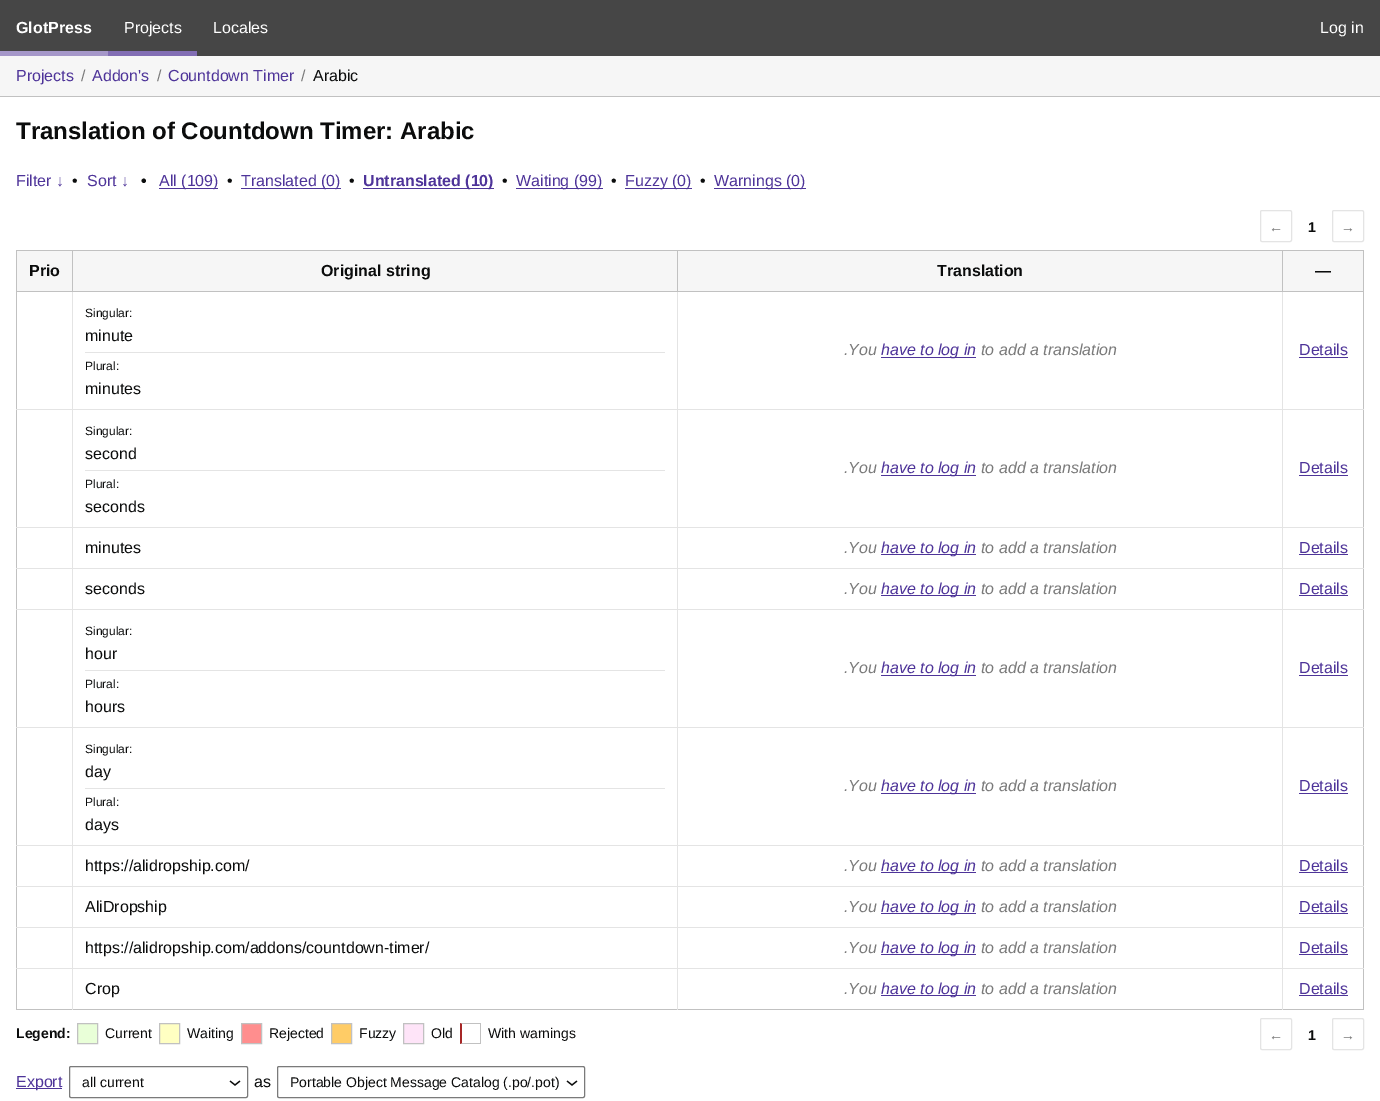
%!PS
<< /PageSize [1380 1101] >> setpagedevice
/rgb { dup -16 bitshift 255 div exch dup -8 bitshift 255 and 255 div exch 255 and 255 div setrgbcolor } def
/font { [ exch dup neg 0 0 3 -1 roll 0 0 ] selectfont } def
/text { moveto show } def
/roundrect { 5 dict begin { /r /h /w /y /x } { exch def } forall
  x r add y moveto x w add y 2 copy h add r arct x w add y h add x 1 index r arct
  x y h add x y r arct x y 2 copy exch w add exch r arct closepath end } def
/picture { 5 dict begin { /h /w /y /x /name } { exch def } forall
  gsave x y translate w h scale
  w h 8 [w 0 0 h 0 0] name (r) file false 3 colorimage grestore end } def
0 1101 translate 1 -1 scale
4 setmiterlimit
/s1 { /LiberationSans-Bold 16 font 16#FFFFFF rgb } def
/s2 { /LiberationSans-Regular 16 font 16#FFFFFF rgb } def
/s3 { /LiberationSans-Regular 16 font 16#4E3499 rgb } def
/s4 { /LiberationSans-Regular 16 font 16#7A7A7A rgb } def
/s5 { /LiberationSans-Regular 16 font 16#0B0C0C rgb } def
/s6 { /LiberationSans-Bold 24 font 16#0B0C0C rgb } def
/s7 { /LiberationSans-Bold 16 font 16#0B0C0C rgb } def
/s8 { /LiberationSans-Bold 16 font 16#4E3499 rgb } def
/s9 { /LiberationSans-Regular 14 font 16#7A7A7A rgb } def
/s10 { /LiberationSans-Bold 14 font 16#0B0C0C rgb } def
/s11 { /LiberationSans-Regular 12 font 16#0B0C0C rgb } def
/s12 { /LiberationSans-Italic 16 font 16#7A7A7A rgb } def
/s13 { /LiberationSans-Italic 16 font 16#4E3499 rgb } def
/s14 { /LiberationSans-Regular 14 font 16#0B0C0C rgb } def
16#FFFFFF rgb
0 0 1380 1101 rectfill
16#464646 rgb
0 0 1380 56 rectfill
16#A597C9 rgb
0 51 108 5 rectfill
s1
(GlotPress) 16 33 text
16#826EB4 rgb
108 51 89 5 rectfill
s2
(Projects) 124 33 text
(Locales) 213 33 text
(Log in) 1320 33 text
16#F6F6F6 rgb
0 56 1380 40 rectfill
16#C1C1C1 rgb
0 96 1380 1 rectfill
s3
(Projects) 16 81 text
s4
(/) 81 81 text
s3
(Addon's) 92 81 text
s4
(/) 157 81 text
s3
(Countdown Timer) 168 81 text
s4
(/) 301 81 text
s5
(Arabic) 313 81 text
s6
(Translation of Countdown Timer: Arabic) 16 139 text
s3
(Filter ↓) 16 186 text
s5
(•) 72 186 text
s3
(Sort ↓) 87 186 text
s7
(•) 141 186 text
16#4E3499 rgb
159 188 59 1 rectfill
s3
(All \(109\)) 159 186 text
s5
(•) 227 186 text
16#4E3499 rgb
241 188 100 1 rectfill
(Translated \(0\)) 241 186 text
s5
(•) 349 186 text
16#4E3499 rgb
363 188 131 1 rectfill
s8
(Untranslated \(10\)) 363 186 text
s5
(•) 502 186 text
16#4E3499 rgb
516 188 87 1 rectfill
(Waiting \(99\)) 516 186 text
s5
(•) 611 186 text
16#4E3499 rgb
625 188 67 1 rectfill
(Fuzzy \(0\)) 625 186 text
s5
(•) 700 186 text
16#4E3499 rgb
714 188 92 1 rectfill
(Warnings \(0\)) 714 186 text
16#E4E4E4 rgb
1260.5 210.5 31 31 1.5 roundrect stroke
s9
(←) 1269 232 text
s10
(1) 1308 232 text
16#E4E4E4 rgb
1332.5 210.5 31 31 1.5 roundrect stroke
s9
(→) 1341 232 text
16#C1C1C1 rgb
16 250 1348 1 rectfill
1363 250 1 760 rectfill
16 1009 1348 1 rectfill
16 250 1 760 rectfill
16#F6F6F6 rgb
17 251 55 40 rectfill
16#E4E4E4 rgb
1282 409 82 1 rectfill
1282 527 82 1 rectfill
1282 568 82 1 rectfill
1282 609 82 1 rectfill
1282 727 82 1 rectfill
1282 845 82 1 rectfill
1282 886 82 1 rectfill
1282 927 82 1 rectfill
1282 968 82 1 rectfill
1282 968 1 42 rectfill
677 968 606 1 rectfill
1282 927 1 42 rectfill
677 927 606 1 rectfill
1282 886 1 42 rectfill
677 886 606 1 rectfill
1282 845 1 42 rectfill
677 845 606 1 rectfill
1282 727 1 119 rectfill
677 727 606 1 rectfill
1282 609 1 119 rectfill
677 609 606 1 rectfill
1282 568 1 42 rectfill
677 568 606 1 rectfill
1282 527 1 42 rectfill
677 527 606 1 rectfill
1282 409 1 119 rectfill
677 409 606 1 rectfill
1282 291 1 119 rectfill
16#C1C1C1 rgb
1282 291 82 1 rectfill
1282 250 1 42 rectfill
16#E4E4E4 rgb
677 968 1 42 rectfill
72 968 606 1 rectfill
677 927 1 42 rectfill
72 927 606 1 rectfill
677 886 1 42 rectfill
72 886 606 1 rectfill
677 845 1 42 rectfill
72 845 606 1 rectfill
677 727 1 119 rectfill
72 727 606 1 rectfill
677 609 1 119 rectfill
72 609 606 1 rectfill
677 568 1 42 rectfill
72 568 606 1 rectfill
677 527 1 42 rectfill
72 527 606 1 rectfill
677 409 1 119 rectfill
72 409 606 1 rectfill
677 291 1 119 rectfill
16#C1C1C1 rgb
677 291 606 1 rectfill
677 250 1 42 rectfill
16#E4E4E4 rgb
72 968 1 42 rectfill
16 968 57 1 rectfill
72 927 1 42 rectfill
16 927 57 1 rectfill
72 886 1 42 rectfill
16 886 57 1 rectfill
72 845 1 42 rectfill
16 845 57 1 rectfill
72 727 1 119 rectfill
16 727 57 1 rectfill
72 609 1 119 rectfill
16 609 57 1 rectfill
72 568 1 42 rectfill
16 568 57 1 rectfill
72 527 1 42 rectfill
16 527 57 1 rectfill
72 409 1 119 rectfill
16 409 57 1 rectfill
72 291 1 119 rectfill
16#C1C1C1 rgb
72 291 606 1 rectfill
72 250 1 42 rectfill
16 291 57 1 rectfill
s7
(Prio) 29 276 text
16#F6F6F6 rgb
73 251 604 40 rectfill
s7
(Original string) 321 276 text
16#F6F6F6 rgb
678 251 604 40 rectfill
s7
(Translation) 937 276 text
16#F6F6F6 rgb
1283 251 80 40 rectfill
s7
(—) 1315 276 text
16#E4E4E4 rgb
85 352 580 1 rectfill
s11
(Singular:) 85 317 text
s5
(minute) 85 341 text
s11
(Plural:) 85 370 text
s5
(minutes) 85 394 text
s12
(.) 844 355 text
(You) 848 355 text
16#4E3499 rgb
881 357 95 1 rectfill
(have to log in) 881 355 text
s12
(to add a translation) 981 355 text
s3
(Details) 1299 355 text
1299 357 49 1 rectfill
16#E4E4E4 rgb
85 470 580 1 rectfill
s11
(Singular:) 85 435 text
s5
(second) 85 459 text
s11
(Plural:) 85 488 text
s5
(seconds) 85 512 text
s12
(.) 844 473 text
(You) 848 473 text
16#4E3499 rgb
881 475 95 1 rectfill
(have to log in) 881 473 text
s12
(to add a translation) 981 473 text
s3
(Details) 1299 473 text
1299 475 49 1 rectfill
s5
(minutes) 85 553 text
s12
(.) 844 553 text
(You) 848 553 text
16#4E3499 rgb
881 554 95 1 rectfill
(have to log in) 881 553 text
s12
(to add a translation) 981 553 text
s3
(Details) 1299 553 text
1299 554 49 1 rectfill
s5
(seconds) 85 594 text
s12
(.) 844 594 text
(You) 848 594 text
16#4E3499 rgb
881 595 95 1 rectfill
(have to log in) 881 594 text
s12
(to add a translation) 981 594 text
s3
(Details) 1299 594 text
1299 595 49 1 rectfill
16#E4E4E4 rgb
85 670 580 1 rectfill
s11
(Singular:) 85 635 text
s5
(hour) 85 659 text
s11
(Plural:) 85 688 text
s5
(hours) 85 712 text
s12
(.) 844 673 text
(You) 848 673 text
16#4E3499 rgb
881 675 95 1 rectfill
(have to log in) 881 673 text
s12
(to add a translation) 981 673 text
s3
(Details) 1299 673 text
1299 675 49 1 rectfill
16#E4E4E4 rgb
85 788 580 1 rectfill
s11
(Singular:) 85 753 text
s5
(day) 85 777 text
s11
(Plural:) 85 806 text
s5
(days) 85 830 text
s12
(.) 844 791 text
(You) 848 791 text
16#4E3499 rgb
881 793 95 1 rectfill
(have to log in) 881 791 text
s12
(to add a translation) 981 791 text
s3
(Details) 1299 791 text
1299 793 49 1 rectfill
s5
(https://alidropship.com/) 85 871 text
s12
(.) 844 871 text
(You) 848 871 text
16#4E3499 rgb
881 872 95 1 rectfill
(have to log in) 881 871 text
s12
(to add a translation) 981 871 text
s3
(Details) 1299 871 text
1299 872 49 1 rectfill
s5
(AliDropship) 85 912 text
s12
(.) 844 912 text
(You) 848 912 text
16#4E3499 rgb
881 913 95 1 rectfill
(have to log in) 881 912 text
s12
(to add a translation) 981 912 text
s3
(Details) 1299 912 text
1299 913 49 1 rectfill
s5
(https://alidropship.com/addons/countdown-timer/) 85 953 text
s12
(.) 844 953 text
(You) 848 953 text
16#4E3499 rgb
881 954 95 1 rectfill
(have to log in) 881 953 text
s12
(to add a translation) 981 953 text
s3
(Details) 1299 953 text
1299 954 49 1 rectfill
s5
(Crop) 85 994 text
s12
(.) 844 994 text
(You) 848 994 text
16#4E3499 rgb
881 995 95 1 rectfill
(have to log in) 881 994 text
s12
(to add a translation) 981 994 text
s3
(Details) 1299 994 text
1299 995 49 1 rectfill
s10
(Legend:) 16 1038 text
16#E9FFD8 rgb
77.5 1023.5 moveto 97.5 1023.5 lineto 97.5 1043.5 lineto 77.5 1043.5 lineto closepath gsave fill grestore
16#C1C1C1 rgb
stroke
s14
(Current) 105 1038 text
16#FFFFC2 rgb
159.5 1023.5 moveto 179.5 1023.5 lineto 179.5 1043.5 lineto 159.5 1043.5 lineto closepath gsave fill grestore
16#C1C1C1 rgb
stroke
s14
(Waiting) 187 1038 text
16#FF8E8E rgb
241.5 1023.5 moveto 261.5 1023.5 lineto 261.5 1043.5 lineto 241.5 1043.5 lineto closepath gsave fill grestore
16#C1C1C1 rgb
stroke
s14
(Rejected) 269 1038 text
16#FFCC66 rgb
331.5 1023.5 moveto 351.5 1023.5 lineto 351.5 1043.5 lineto 331.5 1043.5 lineto closepath gsave fill grestore
16#C1C1C1 rgb
stroke
s14
(Fuzzy) 359 1038 text
16#FEE4F8 rgb
403.5 1023.5 moveto 423.5 1023.5 lineto 423.5 1043.5 lineto 403.5 1043.5 lineto closepath gsave fill grestore
16#C1C1C1 rgb
stroke
s14
(Old) 431 1038 text
16#C1C1C1 rgb
460 1023 moveto 481 1023 lineto 480 1024 lineto 462 1024 lineto closepath fill
480 1023 1 21 rectfill
481 1044 moveto 460 1044 lineto 462 1043 lineto 480 1043 lineto closepath fill
16#A62626 rgb
460 1044 moveto 460 1023 lineto 462 1024 lineto 462 1043 lineto closepath fill
s14
(With warnings) 488 1038 text
16#E4E4E4 rgb
1260.5 1018.5 31 31 1.5 roundrect stroke
s9
(←) 1269 1040 text
s10
(1) 1308 1040 text
16#E4E4E4 rgb
1332.5 1018.5 31 31 1.5 roundrect stroke
s9
(→) 1341 1040 text
16#4E3499 rgb
16 1088 46 1 rectfill
s3
(Export) 16 1087 text
(pic1.raw) 229 1080 12 6 picture
16#7A7A7A rgb
69.5 1066.5 178 31 1.5 roundrect stroke
s14
(all current) 82 1087 text
s5
(as) 254 1087 text
(pic1.raw) 566 1080 12 6 picture
16#7A7A7A rgb
277.5 1066.5 307 31 1.5 roundrect stroke
s14
(Portable Object Message Catalog \(.po/.pot\)) 290 1087 text
showpage
